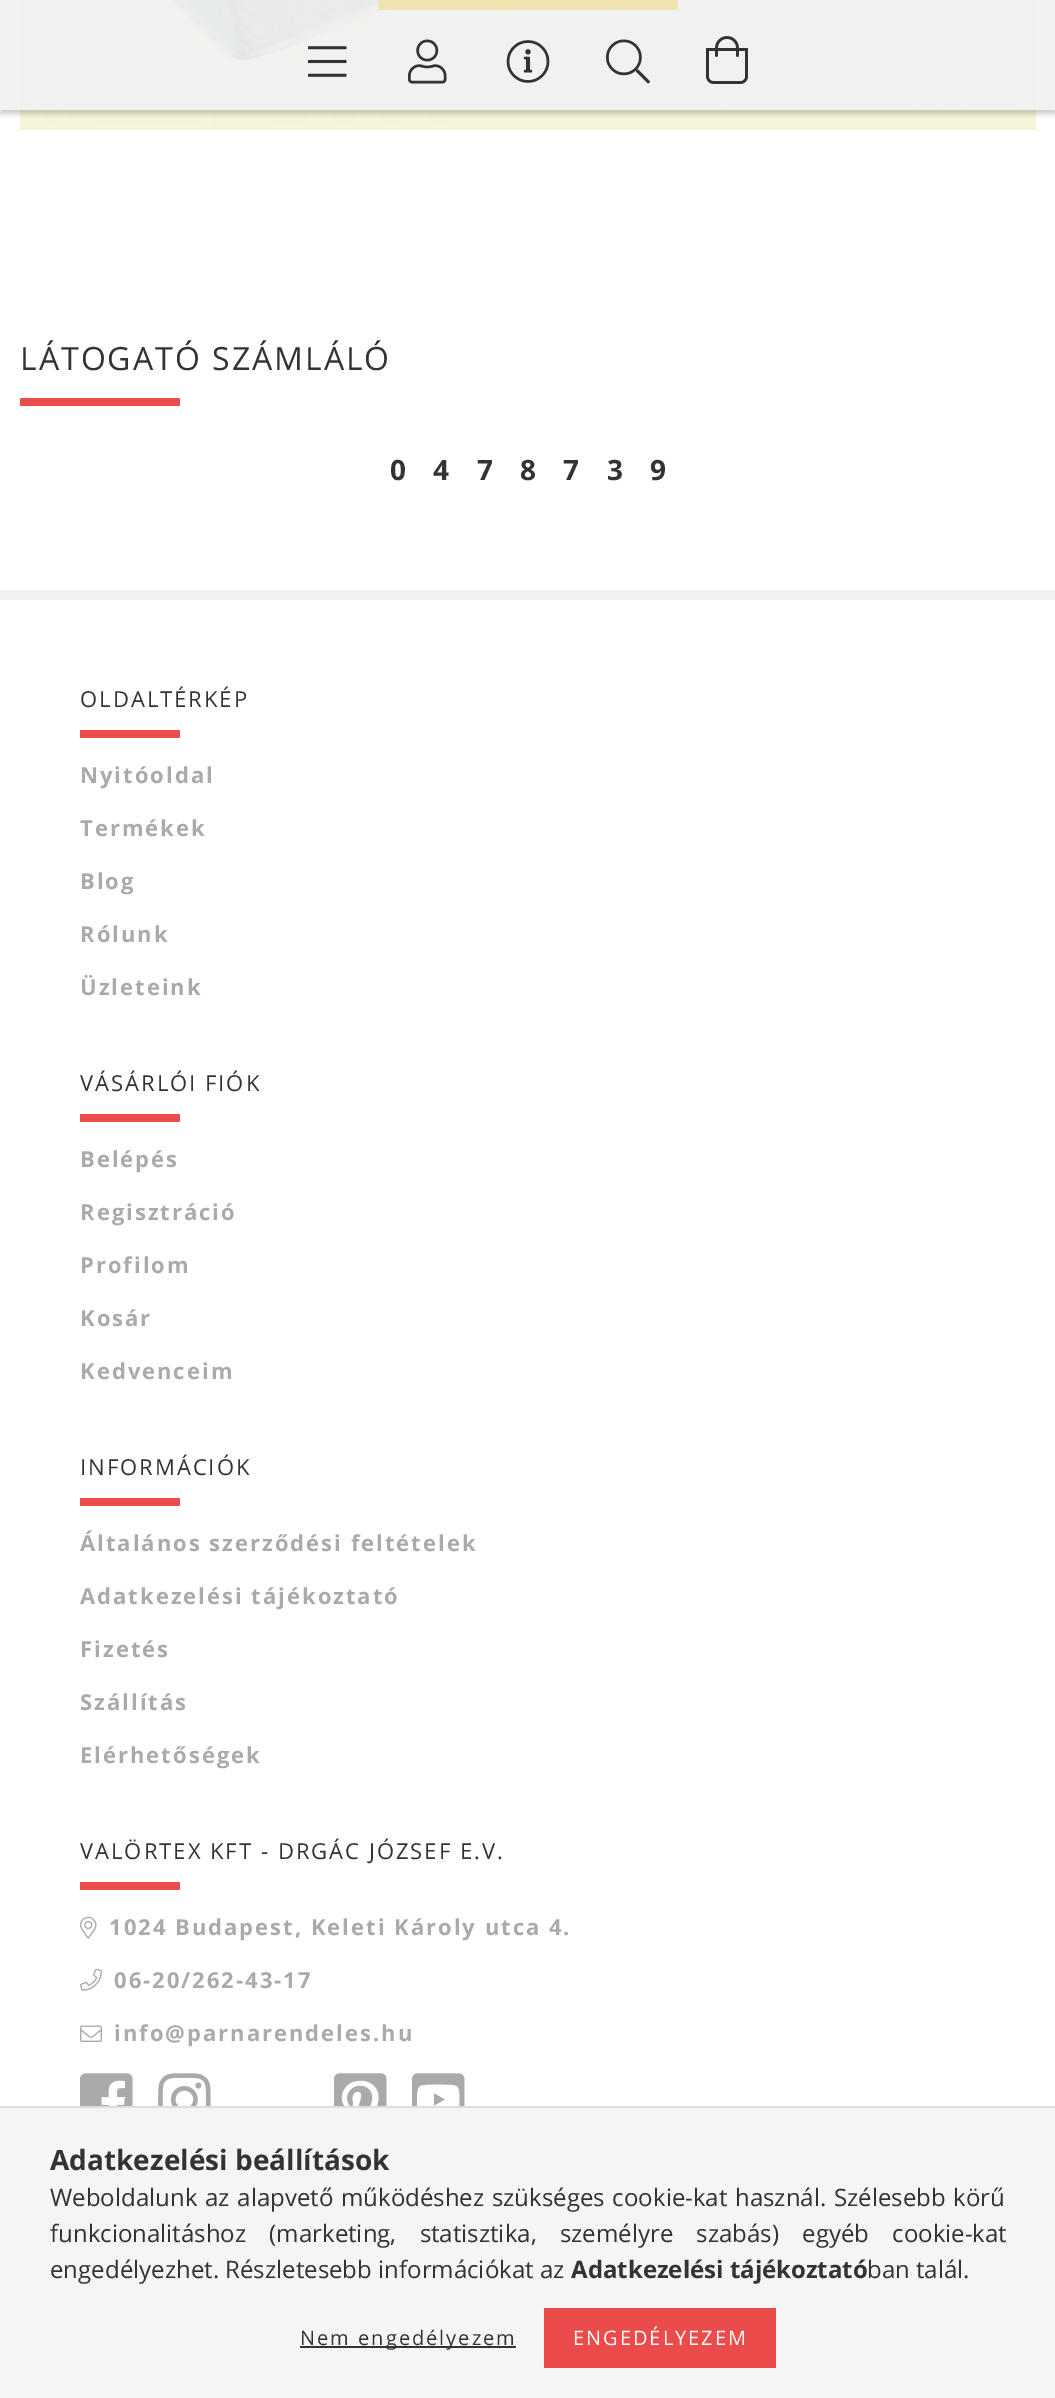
%!PS
<< /PageSize [1055 2398] /PageUsesTransparency true >> setpagedevice
/rgb { dup -16 bitshift 255 div exch dup -8 bitshift 255 and 255 div exch 255 and 255 div setrgbcolor } def
/font { [ exch dup neg 0 0 3 -1 roll 0 0 ] selectfont } def
/text { moveto show } def
/alpha { dup .setfillconstantalpha .setstrokeconstantalpha } def
/roundrect { 5 dict begin { /r /h /w /y /x } { exch def } forall
  x r add y moveto x w add y 2 copy h add r arct x w add y h add x 1 index r arct
  x y h add x y r arct x y 2 copy exch w add exch r arct closepath end } def
/shadow { 12 dict begin { /a /b /q /h /w /y /x } { exch def } forall gsave /was 0 def
  9 -2 -9 { dup b mul 4 div /e exch def 1 sub .425 mul 2.718 exch exp 1 add a .99 .min exch div /now exch def
    1 1 now sub 1 was sub div sub alpha /was now def
    w h .min e 2 mul add 0 gt { x e sub y e sub w e 2 mul add h e 2 mul add
      q e add b .6 mul add w h .min 2 div e add .min 0 .max roundrect fill } if } for grestore end } def
/picture { 5 dict begin { /h /w /y /x /name } { exch def } forall
  gsave x y translate w h scale
  w h 8 [w 0 0 h 0 0] name (r) file false 3 colorimage grestore end } def
0 .pushpdf14devicefilter
0 2398 translate 1 -1 scale
4 setmiterlimit
/s1 { /OpenSans-Bold 28 font 16#333333 rgb } def
/s2 { /OpenSans-Regular 24 font 16#333333 rgb } def
/s3 { /OpenSans-Bold 24 font 16#333333 rgb } def
16#FFFFFF rgb
0 0 1055 2398 rectfill
(pic7.raw) 20 0 1016 130 picture
gsave
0 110 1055 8 rectclip
16#000000 rgb
0 -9 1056 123 0 3 0.2 shadow
grestore
0.9 alpha
16#F1F1F1 rgb
0 0 1055 110 rectfill
1 alpha
(pic1.raw) 378 0 300 10 picture
(pic2.raw) 308 46 39 31 picture
(pic3.raw) 408 39 39 45 picture
(pic4.raw) 506 40 44 43 picture
(pic5.raw) 606 39 44 45 picture
(pic6.raw) 706 36 42 48 picture
/OpenSans-Regular 32 font
16#333333 rgb
20 370 moveto 2 0 (LÁTOGATÓ SZÁMLÁLÓ) ashow
16#EC4B4B rgb
20 398 160 8 rectfill
s1
(0) 390 480 text
(4) 433 480 text
(7) 477 480 text
(8) 520 480 text
(7) 563 480 text
(3) 607 480 text
(9) 650 480 text
16#F1F1F1 rgb
0 590 1055 10 rectfill
/OpenSans-Regular 22 font
16#333333 rgb
80 707 moveto 2 0 (OLDALTÉRKÉP) ashow
16#EC4B4B rgb
80 730 100 8 rectfill
/OpenSans-Bold 22 font
16#AAAAAA rgb
80 783 moveto 2 0 (Nyitóoldal) ashow
80 836 moveto 2 0 (Termékek) ashow
80 889 moveto 2 0 (Blog) ashow
80 942 moveto 2 0 (Rólunk) ashow
80 995 moveto 2 0 (Üzleteink) ashow
/OpenSans-Regular 22 font
16#333333 rgb
80 1091 moveto 2 0 (VÁSÁRLÓI FIÓK) ashow
16#EC4B4B rgb
80 1114 100 8 rectfill
/OpenSans-Bold 22 font
16#AAAAAA rgb
80 1167 moveto 2 0 (Belépés) ashow
80 1220 moveto 2 0 (Regisztráció) ashow
80 1273 moveto 2 0 (Profilom) ashow
80 1326 moveto 2 0 (Kosár) ashow
80 1379 moveto 2 0 (Kedvenceim) ashow
/OpenSans-Regular 22 font
16#333333 rgb
80 1475 moveto 2 0 (INFORMÁCIÓK) ashow
16#EC4B4B rgb
80 1498 100 8 rectfill
/OpenSans-Bold 22 font
16#AAAAAA rgb
80 1551 moveto 2 0 (Általános szerződési feltételek) ashow
80 1604 moveto 2 0 (Adatkezelési tájékoztató) ashow
80 1657 moveto 2 0 (Fizetés) ashow
80 1710 moveto 2 0 (Szállítás) ashow
80 1763 moveto 2 0 (Elérhetőségek) ashow
/OpenSans-Regular 22 font
16#333333 rgb
80 1859 moveto 2 0 (VALÖRTEX KFT - DRGÁC JÓZSEF E.V.) ashow
16#EC4B4B rgb
80 1882 100 8 rectfill
(pic8.raw) 80 1916 17 23 picture
/OpenSans-Bold 22 font
16#AAAAAA rgb
109 1935 moveto 2 0 (1024 Budapest, Keleti Károly utca 4.) ashow
(pic9.raw) 80 1968 22 23 picture
114 1988 moveto 2 0 (06-20/262-43-17) ashow
(pic10.raw) 80 2025 22 17 picture
114 2041 moveto 2 0 (info@parnarendeles.hu) ashow
(pic11.raw) 80 2073 53 33 picture
(pic12.raw) 158 2073 53 33 picture
(pic13.raw) 334 2073 53 33 picture
(pic14.raw) 412 2073 53 33 picture
16#F5F5F5 rgb
0 2108 1055 290 rectfill
16#DDDDDD rgb
0 2106 1055 2 rectfill
s1
(Adatkezelési beállítások) 50 2170 text
/OpenSans-Regular 24 font
50 2206 moveto 1.5 0 32 (Weboldalunk az alapvető működéshez szükséges cookie-kat használ. Szélesebb körű) widthshow
50 2242 moveto 17 0 32 (funkcionalitáshoz \(marketing, statisztika, személyre szabás\) egyéb cookie-kat) widthshow
(engedélyezhet. Részletesebb információkat az) 50 2278 text
s3
(Adatkezelési tájékoztató) 571 2278 text
s2
(ban talál.) 867 2278 text
300 2346 216 2 rectfill
/OpenSans-Regular 20 font
300 2345 moveto 2 0 (Nem engedélyezem) ashow
16#EC4B4B rgb
544 2308 232 60 rectfill
16#FFFFFF rgb
573 2345 moveto 2 0 (ENGEDÉLYEZEM) ashow
.poppdf14devicefilter showpage
